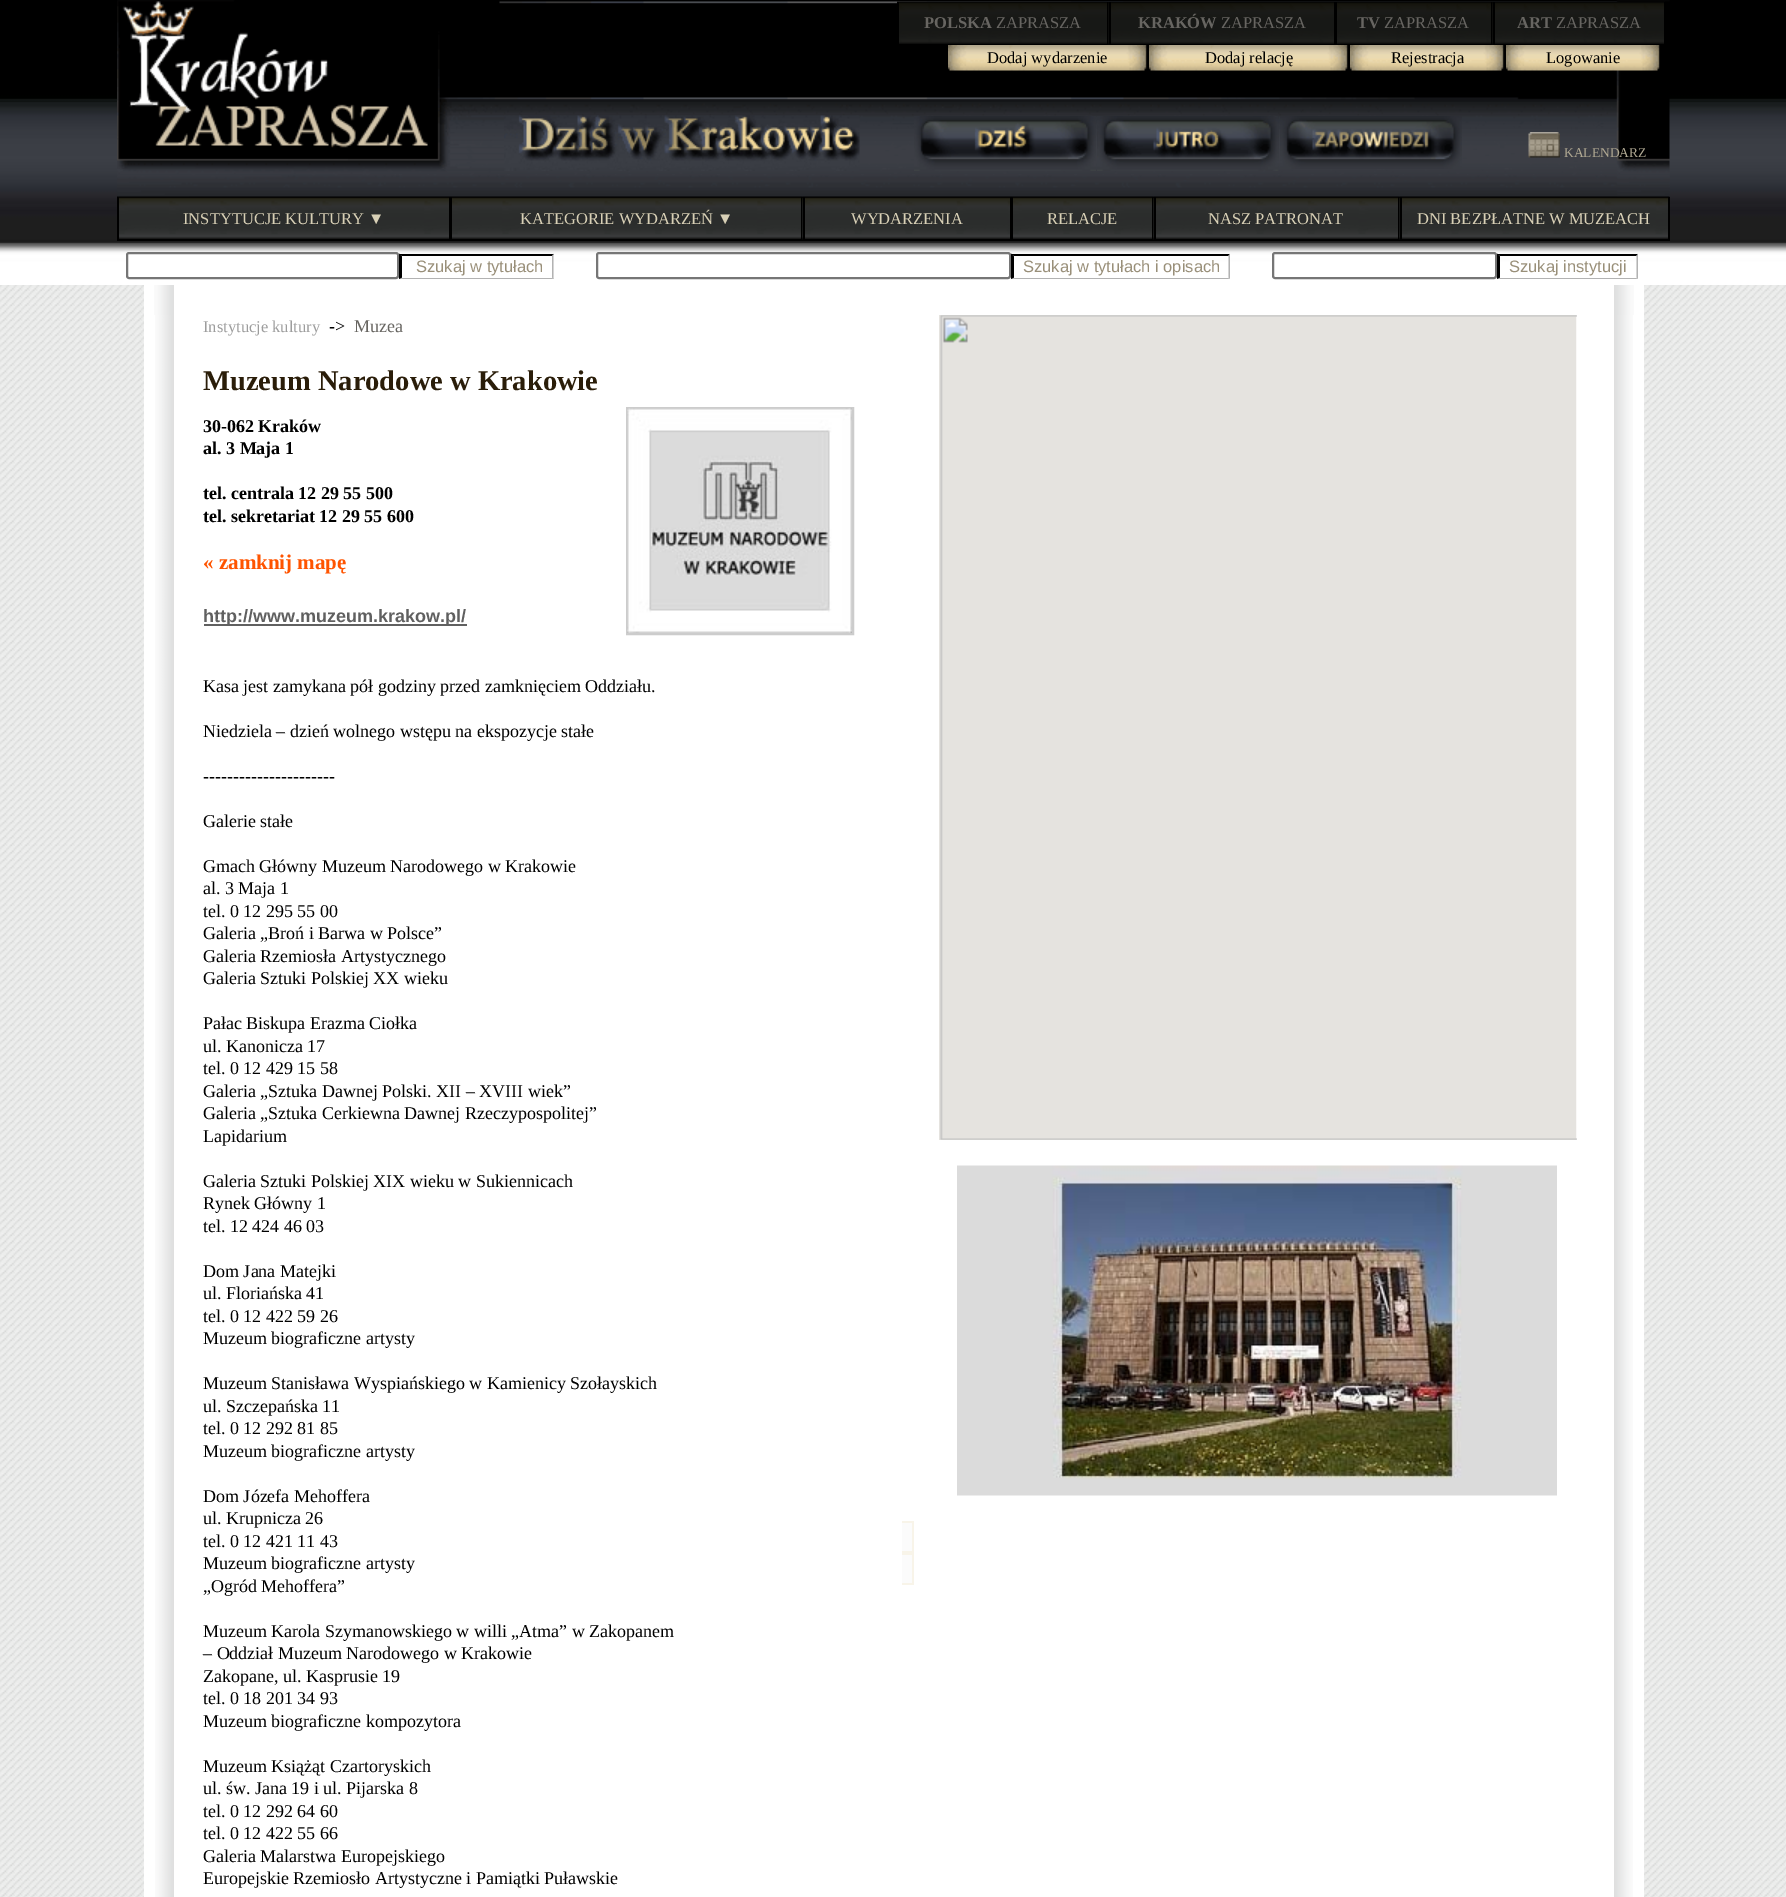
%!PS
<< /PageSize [1786 1897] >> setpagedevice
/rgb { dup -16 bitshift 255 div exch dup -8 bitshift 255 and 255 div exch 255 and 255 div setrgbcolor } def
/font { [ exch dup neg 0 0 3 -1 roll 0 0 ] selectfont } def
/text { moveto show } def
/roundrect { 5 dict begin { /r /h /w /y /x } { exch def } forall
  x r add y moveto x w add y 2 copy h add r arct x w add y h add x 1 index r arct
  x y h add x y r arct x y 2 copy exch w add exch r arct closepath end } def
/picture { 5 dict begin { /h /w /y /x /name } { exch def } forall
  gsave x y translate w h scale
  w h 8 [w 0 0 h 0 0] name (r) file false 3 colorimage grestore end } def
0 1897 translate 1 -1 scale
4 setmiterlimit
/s1 { /LiberationSerif-Bold 16.5 font 16#676561 rgb } def
/s2 { /LiberationSerif-Regular 16.5 font 16#676561 rgb } def
/s3 { /LiberationSerif-Regular 16.5 font 16#000000 rgb } def
/s4 { /LiberationSerif-Regular 13.5 font 16#B1A993 rgb } def
/s5 { /LiberationSerif-Regular 16.5 font 16#D8D0B6 rgb } def
/s6 { /LiberationSans-Regular 16.5 font 16#998F79 rgb } def
/s7 { /LiberationSerif-Regular 16.5 font 16#9D9D9D rgb } def
/s8 { /LiberationSerif-Regular 18 font 16#000000 rgb } def
/s9 { /LiberationSerif-Regular 18 font 16#676561 rgb } def
/s10 { /LiberationSerif-Bold 28.5 font 16#2A1D09 rgb } def
/s11 { /LiberationSerif-Bold 18 font 16#000000 rgb } def
/s12 { /LiberationSerif-Bold 21 font 16#FF5400 rgb } def
/s13 { /LiberationSans-Bold 18 font 16#606060 rgb } def
16#FFFFFF rgb
0 0 1786 1897 rectfill
(pic1.raw) 0 285 1786 1612 picture
(pic2.raw) 0 0 1786 285 picture
(pic3.raw) 117 0 1553 197 picture
(pic4.raw) 117 1 330 168 picture
(pic5.raw) 897 1 212 43 picture
16#000000 rgb
1107 2 2 43 rectfill
897 2 2 43 rectfill
s1
(POLSKA) 924 28 text
s2
(ZAPRASZA) 996 28 text
(pic6.raw) 1108 1 227 44 picture
16#000000 rgb
1334 2 1 43 rectfill
1109 44 226 1 rectfill
1109 2 2 43 rectfill
s1
(KRAKÓW) 1138 28 text
s2
(ZAPRASZA) 1221 28 text
(pic7.raw) 1335 1 158 43 picture
16#000000 rgb
1491 2 2 43 rectfill
1335 2 2 43 rectfill
s1
(TV) 1357 28 text
s2
(ZAPRASZA) 1384 28 text
(pic8.raw) 1492 1 173 44 picture
16#000000 rgb
1664 2 1 43 rectfill
1493 44 172 2 rectfill
1493 2 2 43 rectfill
s1
(ART) 1517 28 text
s2
(ZAPRASZA) 1556 28 text
(pic9.raw) 948 45 199 26 picture
s3
(Dodaj wydarzenie) 987 63 text
(pic10.raw) 1149 45 199 26 picture
(Dodaj relację) 1205 63 text
(pic11.raw) 1350 45 154 26 picture
(Rejestracja) 1391 63 text
(pic12.raw) 1506 45 154 26 picture
(Logowanie) 1546 63 text
(pic13.raw) 504 115 356 56 picture
(pic14.raw) 914 116 182 55 picture
(pic15.raw) 1097 116 182 55 picture
(pic16.raw) 1280 116 182 53 picture
(pic17.raw) 1528 132 32 26 picture
s4
(KALENDARZ) 1564 157 text
(pic18.raw) 117 196 333 43 picture
16#000000 rgb
449 197 1 43 rectfill
117 239 333 2 rectfill
117 197 2 43 rectfill
s5
(INSTYTUCJE KULTURY ▼) 183 224 text
(pic19.raw) 450 196 353 43 picture
16#000000 rgb
801 197 2 43 rectfill
450 239 353 2 rectfill
450 197 2 43 rectfill
s5
(KATEGORIE WYDARZEŃ ▼) 520 224 text
(pic20.raw) 802 196 209 44 picture
16#000000 rgb
1010 197 1 43 rectfill
803 239 208 2 rectfill
803 197 2 43 rectfill
s5
(WYDARZENIA) 851 224 text
(pic21.raw) 1011 196 143 43 picture
16#000000 rgb
1152 197 2 43 rectfill
1011 239 143 2 rectfill
1011 197 2 43 rectfill
s5
(RELACJE) 1047 224 text
(pic22.raw) 1153 196 247 44 picture
16#000000 rgb
1398 197 2 43 rectfill
1154 239 246 2 rectfill
1154 197 2 43 rectfill
s5
(NASZ PATRONAT) 1208 224 text
(pic23.raw) 1399 196 271 44 picture
16#000000 rgb
1668 197 2 43 rectfill
1400 239 270 2 rectfill
1400 197 2 43 rectfill
s5
(DNI BEZPŁATNE W MUZEACH) 1417 224 text
16#FFFFFF rgb
127 253 271 25 2 roundrect gsave fill grestore
16#767676 rgb
2 setlinewidth
stroke
16#000000 rgb
399 254 moveto 554 254 lineto 552 256 lineto 402 256 lineto closepath fill
16#B2B2B2 rgb
553.5 253.5 moveto 553.5 279 lineto 552 277.5 lineto 552 256.5 lineto closepath fill
554 279 moveto 399 279 lineto 402 278 lineto 552 278 lineto closepath fill
16#000000 rgb
399 279 moveto 399 253.5 lineto 402 256.5 lineto 402 277.5 lineto closepath fill
s6
(Szukaj w tytułach) 416 272 text
16#FFFFFF rgb
597 253 413 25 2 roundrect gsave fill grestore
16#767676 rgb
stroke
16#000000 rgb
1011 254 moveto 1230 254 lineto 1228 256 lineto 1014 256 lineto closepath fill
16#B2B2B2 rgb
1230 253.5 moveto 1230 279 lineto 1228.5 277.5 lineto 1228.5 256.5 lineto closepath fill
1230 279 moveto 1011 279 lineto 1014 278 lineto 1228 278 lineto closepath fill
16#000000 rgb
1011 279 moveto 1011 253.5 lineto 1014 256.5 lineto 1014 277.5 lineto closepath fill
s6
(Szukaj w tytułach i opisach) 1023 272 text
16#FFFFFF rgb
1273 253 223 25 2 roundrect gsave fill grestore
16#767676 rgb
stroke
16#000000 rgb
1497 254 moveto 1638 254 lineto 1636 256 lineto 1500 256 lineto closepath fill
16#B2B2B2 rgb
1638 253.5 moveto 1638 279 lineto 1636.5 277.5 lineto 1636.5 256.5 lineto closepath fill
1638 279 moveto 1497 279 lineto 1500 278 lineto 1636 278 lineto closepath fill
16#000000 rgb
1497 279 moveto 1497 253.5 lineto 1500 256.5 lineto 1500 277.5 lineto closepath fill
s6
(Szukaj instytucji) 1509 272 text
16#FFFFFF rgb
144 285 1500 1612 rectfill
(pic24.raw) 154 285 20 30 picture
(pic25.raw) 1614 285 20 30 picture
(pic26.raw) 155 315 19 1582 picture
s7
(Instytucje kultury) 203 332 text
s8
(->) 329 332 text
s9
(Muzea) 354 332 text
s10
(Muzeum Narodowe w Krakowie) 203 390 text
s11
(30-062 Kraków) 203 432 text
(al. 3 Maja 1) 203 454 text
(tel. centrala 12 29 55 500) 203 499 text
(tel. sekretariat 12 29 55 600) 203 522 text
16#CCCCCC rgb
627 408 226 226 rectstroke
(pic27.raw) 627 408 225 225 picture
s12
(« zamknij mapę) 203 569 text
16#606060 rgb
204 624 263 2 rectfill
s13
(http://www.muzeum.krakow.pl/) 203 622 text
s8
(Kasa jest zamykana pół godziny przed zamknięciem Oddziału.) 203 692 text
(Niedziela – dzień wolnego wstępu na ekspozycje stałe) 203 737 text
(----------------------) 203 782 text
(Galerie stałe) 203 827 text
(Gmach Główny Muzeum Narodowego w Krakowie) 203 872 text
(al. 3 Maja 1) 203 894 text
(tel. 0 12 295 55 00) 203 917 text
(Galeria „Broń i Barwa w Polsce”) 203 939 text
(Galeria Rzemiosła Artystycznego) 203 962 text
(Galeria Sztuki Polskiej XX wieku) 203 984 text
(Pałac Biskupa Erazma Ciołka) 203 1029 text
(ul. Kanonicza 17) 203 1052 text
(tel. 0 12 429 15 58) 203 1074 text
(Galeria „Sztuka Dawnej Polski. XII – XVIII wiek”) 203 1097 text
(Galeria „Sztuka Cerkiewna Dawnej Rzeczypospolitej”) 203 1119 text
(Lapidarium) 203 1142 text
(Galeria Sztuki Polskiej XIX wieku w Sukiennicach) 203 1187 text
(Rynek Główny 1) 203 1209 text
(tel. 12 424 46 03) 203 1232 text
(Dom Jana Matejki) 203 1277 text
(ul. Floriańska 41) 203 1299 text
(tel. 0 12 422 59 26) 203 1322 text
(Muzeum biograficzne artysty) 203 1344 text
(Muzeum Stanisława Wyspiańskiego w Kamienicy Szołayskich) 203 1389 text
(ul. Szczepańska 11) 203 1412 text
(tel. 0 12 292 81 85) 203 1434 text
(Muzeum biograficzne artysty) 203 1457 text
(Dom Józefa Mehoffera) 203 1502 text
(ul. Krupnicza 26) 203 1524 text
(tel. 0 12 421 11 43) 203 1547 text
(Muzeum biograficzne artysty) 203 1569 text
(„Ogród Mehoffera”) 203 1592 text
(Muzeum Karola Szymanowskiego w willi „Atma” w Zakopanem) 203 1637 text
(– Oddział Muzeum Narodowego w Krakowie) 203 1659 text
(Zakopane, ul. Kasprusie 19) 203 1682 text
(tel. 0 18 201 34 93) 203 1704 text
(Muzeum biograficzne kompozytora) 203 1727 text
(Muzeum Książąt Czartoryskich) 203 1772 text
(ul. św. Jana 19 i ul. Pijarska 8) 203 1794 text
(tel. 0 12 292 64 60) 203 1817 text
(tel. 0 12 422 55 66) 203 1839 text
(Galeria Malarstwa Europejskiego) 203 1862 text
(Europejskie Rzemiosło Artystyczne i Pamiątki Puławskie) 203 1884 text
(pic28.raw) 939 315 638 825 picture
(pic29.raw) 957 1165 600 331 picture
16#FBFBFB rgb
902 1523 10 28 rectfill
16#F8F4E9 rgb
902 1521 12 2 rectfill
912 1521 2 32 rectfill
902 1551 12 4 rectfill
16#FBFBFB rgb
902 1555 10 28 rectfill
16#F8F4E9 rgb
912 1553 2 31 rectfill
902 1583 12 2 rectfill
(pic30.raw) 1614 315 19 1582 picture
showpage
